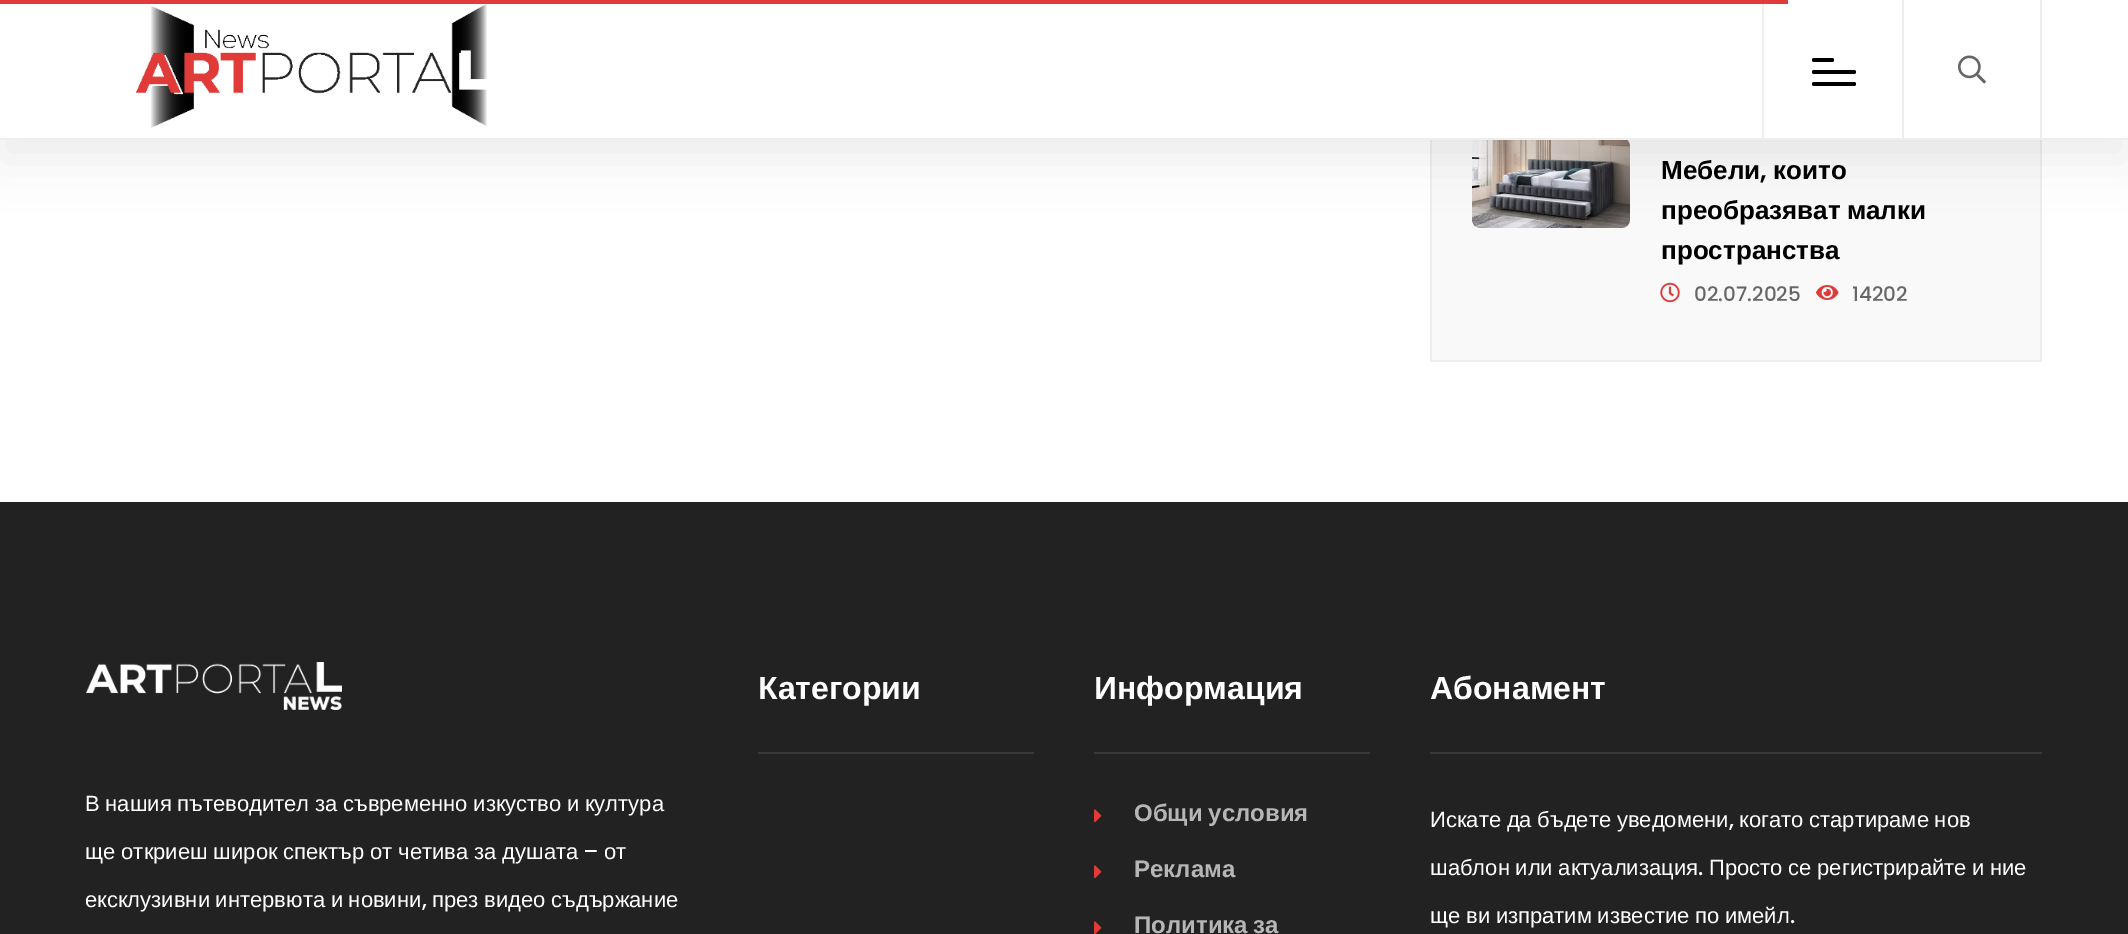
%!PS
<< /PageSize [2128 934] /PageUsesTransparency true >> setpagedevice
/rgb { dup -16 bitshift 255 div exch dup -8 bitshift 255 and 255 div exch 255 and 255 div setrgbcolor } def
/font { [ exch dup neg 0 0 3 -1 roll 0 0 ] selectfont } def
/text { moveto show } def
/alpha { dup .setfillconstantalpha .setstrokeconstantalpha } def
/roundrect { 5 dict begin { /r /h /w /y /x } { exch def } forall
  x r add y moveto x w add y 2 copy h add r arct x w add y h add x 1 index r arct
  x y h add x y r arct x y 2 copy exch w add exch r arct closepath end } def
/shadow { 12 dict begin { /a /b /q /h /w /y /x } { exch def } forall gsave /was 0 def
  9 -2 -9 { dup b mul 4 div /e exch def 1 sub .425 mul 2.718 exch exp 1 add a .99 .min exch div /now exch def
    1 1 now sub 1 was sub div sub alpha /was now def
    w h .min e 2 mul add 0 gt { x e sub y e sub w e 2 mul add h e 2 mul add
      q e add b .6 mul add w h .min 2 div e add .min 0 .max roundrect fill } if } for grestore end } def
/picture { 5 dict begin { /h /w /y /x /name } { exch def } forall
  gsave x y translate w h scale
  w h 8 [w 0 0 h 0 0] name (r) file false 3 colorimage grestore end } def
0 .pushpdf14devicefilter
0 934 translate 1 -1 scale
4 setmiterlimit
/s1 { /LiberationSans-Bold 26 font 16#000000 rgb } def
/s2 { /Poppins-SemiBold 26 font 16#000000 rgb } def
/s3 { /Poppins-Medium 20 font 16#666666 rgb } def
/s4 { /LiberationSans-Bold 32 font 16#FFFFFF rgb } def
/s5 { /LiberationSans-Bold 24 font 16#B6B6B6 rgb } def
/s6 { /Poppins-Medium 22 font 16#FFFFFF rgb } def
/s7 { /LiberationSans-Regular 22 font 16#FFFFFF rgb } def
16#FFFFFF rgb
0 0 2128 934 rectfill
16#F9F9F9 rgb
1432 140 608 220 rectfill
16#EEEEEE rgb
2040 140 2 222 rectfill
1430 360 612 2 rectfill
1430 140 2 222 rectfill
(pic3.raw) 1472 140 158 88 picture
16#000000 rgb
0 20 2128 140 0 24 0.07 shadow
16#FFFFFF rgb
0 0 2128 138 rectfill
16#EEEEEE rgb
0 138 2128 2 rectfill
(pic1.raw) 136 4 351 124 picture
1762 0 2 140 rectfill
16#000000 rgb
1812 58 22 4 2 roundrect fill
1812 70 44 4 2 roundrect fill
1812 82 44 4 2 roundrect fill
16#EEEEEE rgb
2040 0 2 140 rectfill
1902 0 2 140 rectfill
(pic2.raw) 1958 55 28 29 picture
16#E03B38 rgb
0 0 1788 4 rectfill
s1
(Мебели) 1661 179 text
s2
(,) 1760 179 text
s1
(които) 1773 179 text
1661 219 moveto -1 0 32 (преобразяват малки) widthshow
(пространства) 1661 259 text
(pic4.raw) 1660 282 20 21 picture
s3
(02.07.2025) 1694 301 text
(pic5.raw) 1816 285 23 15 picture
(14202) 1852 301 text
16#222222 rgb
0 502 2128 432 rectfill
16#383838 rgb
758 752 276 2 rectfill
s4
(Категории) 758 699 text
16#383838 rgb
1094 752 276 2 rectfill
s4
(Информация) 1094 699 text
(pic6.raw) 1094 809 8 14 picture
/LiberationSans-Bold 24 font
16#B6B6B6 rgb
1134 821 moveto -1 0 32 (Общи условия) widthshow
(pic6.raw) 1094 865 8 14 picture
(Реклама) 1134 877 text
(pic7.raw) 1094 921 8 13 picture
1134 933 moveto -1 0 32 (Политика за) widthshow
16#383838 rgb
1430 752 612 2 rectfill
s4
(Абонамент) 1430 699 text
/LiberationSans-Regular 22 font
1430 827 moveto -0.5 0 32 (Искате да бъдете уведомени) widthshow
s6
(,) 1729 827 text
/LiberationSans-Regular 22 font
1739 827 moveto -0.5 0 32 (когато стартираме нов) widthshow
1430 875 moveto -0.5 0 32 (шаблон или актуализация) widthshow
s6
(.) 1698 875 text
/LiberationSans-Regular 22 font
1709 875 moveto -0.5 0 32 (Просто се регистрирайте и ние) widthshow
1430 923 moveto -0.5 0 32 (ще ви изпратим известие по имейл) widthshow
s6
(.) 1790 923 text
(pic8.raw) 86 662 256 48 picture
/LiberationSans-Regular 22 font
85 811 moveto -0.5 0 32 (В нашия пътеводител за съвременно изкуство и култура) widthshow
85 859 moveto -0.25 0 32 (ще откриеш широк спектър от четива за душата) widthshow
s6
(–) 583 859 text
s7
(от) 604 859 text
85 907 moveto -0.5 0 32 (ексклузивни интервюта и новини) widthshow
s6
(,) 422 907 text
/LiberationSans-Regular 22 font
432 907 moveto -0.5 0 32 (през видео съдържание) widthshow
.poppdf14devicefilter showpage
